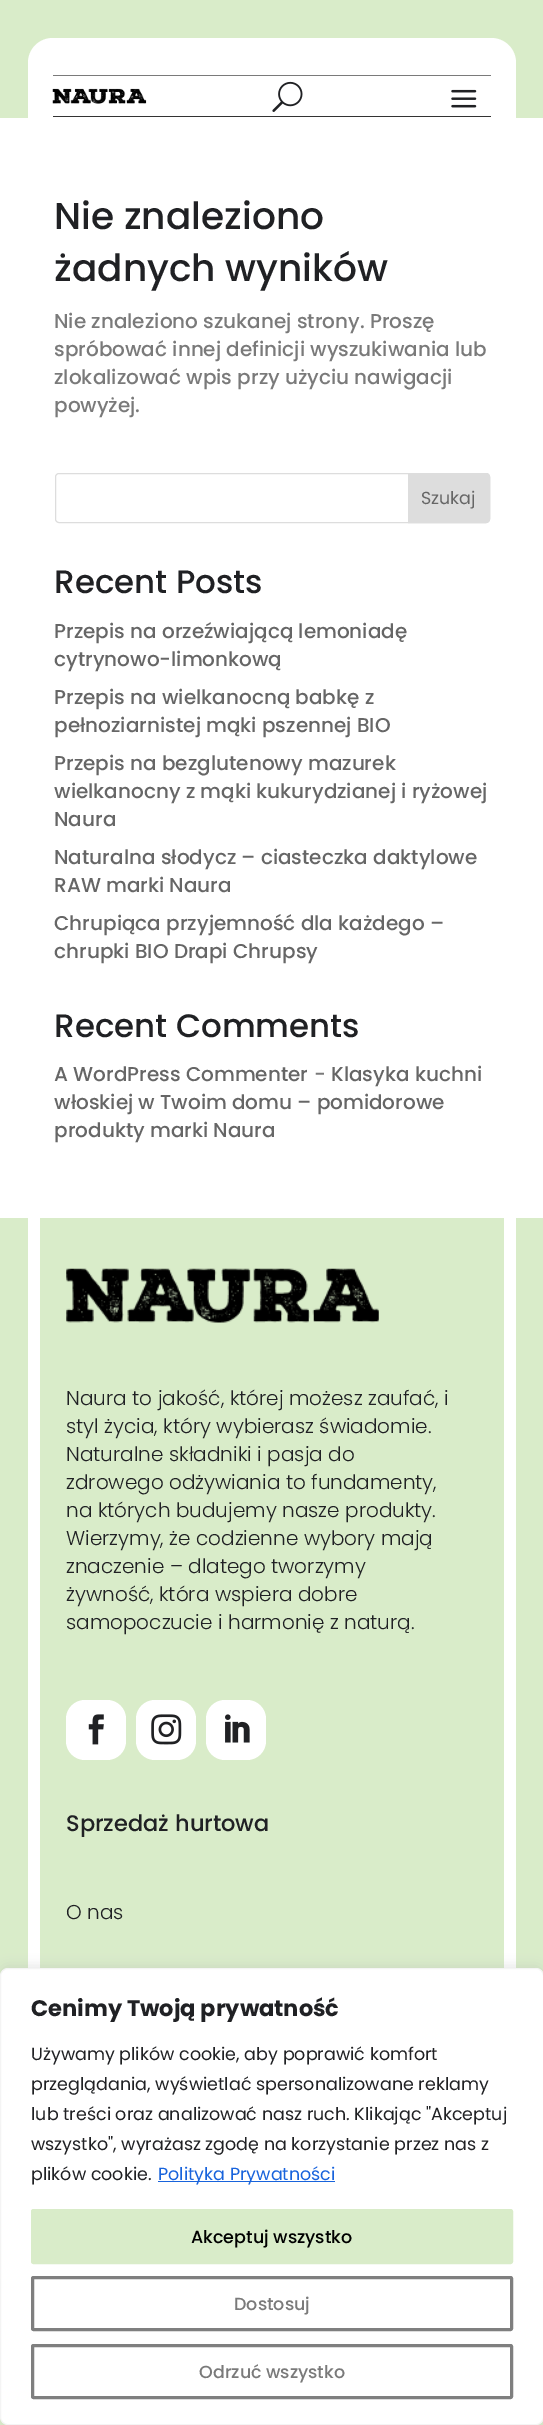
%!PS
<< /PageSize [543 2425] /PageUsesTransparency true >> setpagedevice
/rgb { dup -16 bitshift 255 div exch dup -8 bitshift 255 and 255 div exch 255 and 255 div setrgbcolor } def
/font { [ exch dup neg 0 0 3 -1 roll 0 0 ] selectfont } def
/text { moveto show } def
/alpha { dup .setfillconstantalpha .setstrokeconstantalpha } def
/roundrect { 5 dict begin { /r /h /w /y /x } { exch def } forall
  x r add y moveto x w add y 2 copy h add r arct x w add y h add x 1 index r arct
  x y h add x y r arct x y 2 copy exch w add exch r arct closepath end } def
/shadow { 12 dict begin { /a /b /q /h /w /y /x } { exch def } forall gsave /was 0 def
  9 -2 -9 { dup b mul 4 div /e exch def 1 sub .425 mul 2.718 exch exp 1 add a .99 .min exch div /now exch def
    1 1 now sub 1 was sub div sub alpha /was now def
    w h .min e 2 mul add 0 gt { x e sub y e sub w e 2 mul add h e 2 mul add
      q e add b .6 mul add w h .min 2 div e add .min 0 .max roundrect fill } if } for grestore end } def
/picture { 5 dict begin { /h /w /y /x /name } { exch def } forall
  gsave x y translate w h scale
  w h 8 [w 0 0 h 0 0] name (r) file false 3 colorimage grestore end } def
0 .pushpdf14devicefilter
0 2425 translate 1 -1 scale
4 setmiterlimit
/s1 { /Poppins-Medium 37.5 font 16#202124 rgb } def
/s2 { /Poppins-Medium 20 font 16#7A7A7A rgb } def
/s3 { /Poppins-Regular 17.5 font 16#666666 rgb } def
/s4 { /Poppins-Medium 32.5 font 16#202124 rgb } def
/s5 { /Poppins-Medium 20 font 16#666666 rgb } def
/s6 { /Poppins-Light 20 font 16#202124 rgb } def
/s7 { /Poppins-Medium 22.5 font 16#202124 rgb } def
/s8 { /Poppins-Bold 22.5 font 16#202124 rgb } def
/s9 { /Poppins-Regular 17.5 font 16#202124 rgb } def
/s10 { /Poppins-Regular 17.5 font 16#1863DC rgb } def
/s11 { /Poppins-Medium 17.5 font 16#000000 rgb } def
/s12 { /Poppins-Medium 17.5 font 16#7A7A7A rgb } def
16#D9ECC9 rgb
0 0 543 2425 rectfill
16#FFFFFF rgb
53 38 moveto 491 38 lineto 505 38 516 49 516 63 curveto 516 118 lineto 28 118 lineto 28 63 lineto 28 49 39 38 53 38 curveto closepath fill
16#7A7A7A rgb
53 75 438 1 rectfill
16#333333 rgb
53 116 438 1 rectfill
(pic1.raw) 52 88 95 16 picture
(pic2.raw) 272 81 31 31 picture
(pic3.raw) 451 89 26 19 picture
16#FFFFFF rgb
0 118 543 1100 rectfill
s1
(Nie znaleziono) 54 229 text
(żadnych wyników) 54 281 text
s2
(Nie znaleziono szukanej strony. Proszę) 54 328 text
(spróbować innej definicji wyszukiwania lub) 54 356 text
(zlokalizować wpis przy użyciu nawigacji) 54 384 text
(powyżej.) 54 412 text
16#DDDDDD rgb
55.5 473.5 434 49 3.5 roundrect stroke
408.5 473.5 moveto 486 473.5 lineto 488 473.5 489.5 475 489.5 477 curveto 489.5 519 lineto 489.5 521 488 522.5 486 522.5 curveto 408.5 522.5 lineto closepath gsave fill grestore
stroke
s3
(Szukaj) 421 504 text
s4
(Recent Posts) 54 593 text
s5
(Przepis na orzeźwiającą lemoniadę) 54 638 text
(cytrynowo-limonkową) 54 666 text
(Przepis na wielkanocną babkę z) 54 704 text
(pełnoziarnistej mąki pszennej BIO) 54 732 text
(Przepis na bezglutenowy mazurek) 54 770 text
(wielkanocny z mąki kukurydzianej i ryżowej) 54 798 text
(Naura) 54 826 text
(Naturalna słodycz – ciasteczka daktylowe) 54 864 text
(RAW marki Naura) 54 892 text
(Chrupiąca przyjemność dla każdego –) 54 930 text
(chrupki BIO Drapi Chrupsy) 54 958 text
s4
(Recent Comments) 54 1037 text
s5
(A WordPress Commenter) 54 1081 text
s2
(-) 314 1081 text
s5
(Klasyka kuchni) 331 1081 text
(włoskiej w Twoim domu – pomidorowe) 54 1109 text
(produkty marki Naura) 54 1137 text
16#FFFFFF rgb
28 1218 488 750 rectfill
16#D9ECC9 rgb
40 1218 464 750 rectfill
(pic4.raw) 66 1268 313 55 picture
s6
(Naura to jakość, której możesz zaufać, i) 66 1405 text
(styl życia, który wybierasz świadomie.) 66 1433 text
(Naturalne składniki i pasja do) 66 1461 text
(zdrowego odżywiania to fundamenty,) 66 1489 text
(na których budujemy nasze produkty.) 66 1517 text
(Wierzymy, że codzienne wybory mają) 66 1545 text
(znaczenie – dlatego tworzymy) 66 1573 text
(żywność, która wspiera dobre) 66 1601 text
(samopoczucie i harmonię z naturą.) 66 1629 text
16#FFFFFF rgb
66 1700 60 60 19 roundrect fill
(pic5.raw) 88 1714 16 31 picture
136 1700 60 60 19 roundrect fill
(pic6.raw) 151 1714 31 31 picture
206 1700 60 60 19 roundrect fill
(pic7.raw) 225 1714 25 29 picture
s7
(Sprzedaż hurtowa) 66 1831 text
s6
(O nas) 66 1919 text
16#ACABAB rgb
0 1966 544 458 8 6 0.3 shadow
16#FFFFFF rgb
0.5 1968.5 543 456 7.5 roundrect gsave fill grestore
16#F4F4F4 rgb
stroke
s8
(Cenimy Twoją prywatność) 31 2016 text
s9
(Używamy plików cookie, aby poprawić komfort) 31 2060 text
(przeglądania, wyświetlać spersonalizowane reklamy) 31 2090 text
(lub treści oraz analizować nasz ruch. Klikając "Akceptuj) 31 2120 text
(wszystko", wyrażasz zgodę na korzystanie przez nas z) 31 2150 text
(plików cookie.) 31 2180 text
16#1863DC rgb
158 2181 177 1 rectfill
(Polityka Prywatności) 158 2180 text
16#D9ECC9 rgb
32.5 2210.5 479 52 1 roundrect gsave fill grestore
3 setlinewidth
stroke
s11
(Akceptuj wszystko) 191 2243 text
16#7F7F7F rgb
32.5 2277.5 479 52 1 roundrect stroke
s12
(Dostosuj) 234 2310 text
16#7F7F7F rgb
32.5 2345.5 479 52 1 roundrect stroke
s12
(Odrzuć wszystko) 199 2378 text
.poppdf14devicefilter showpage
